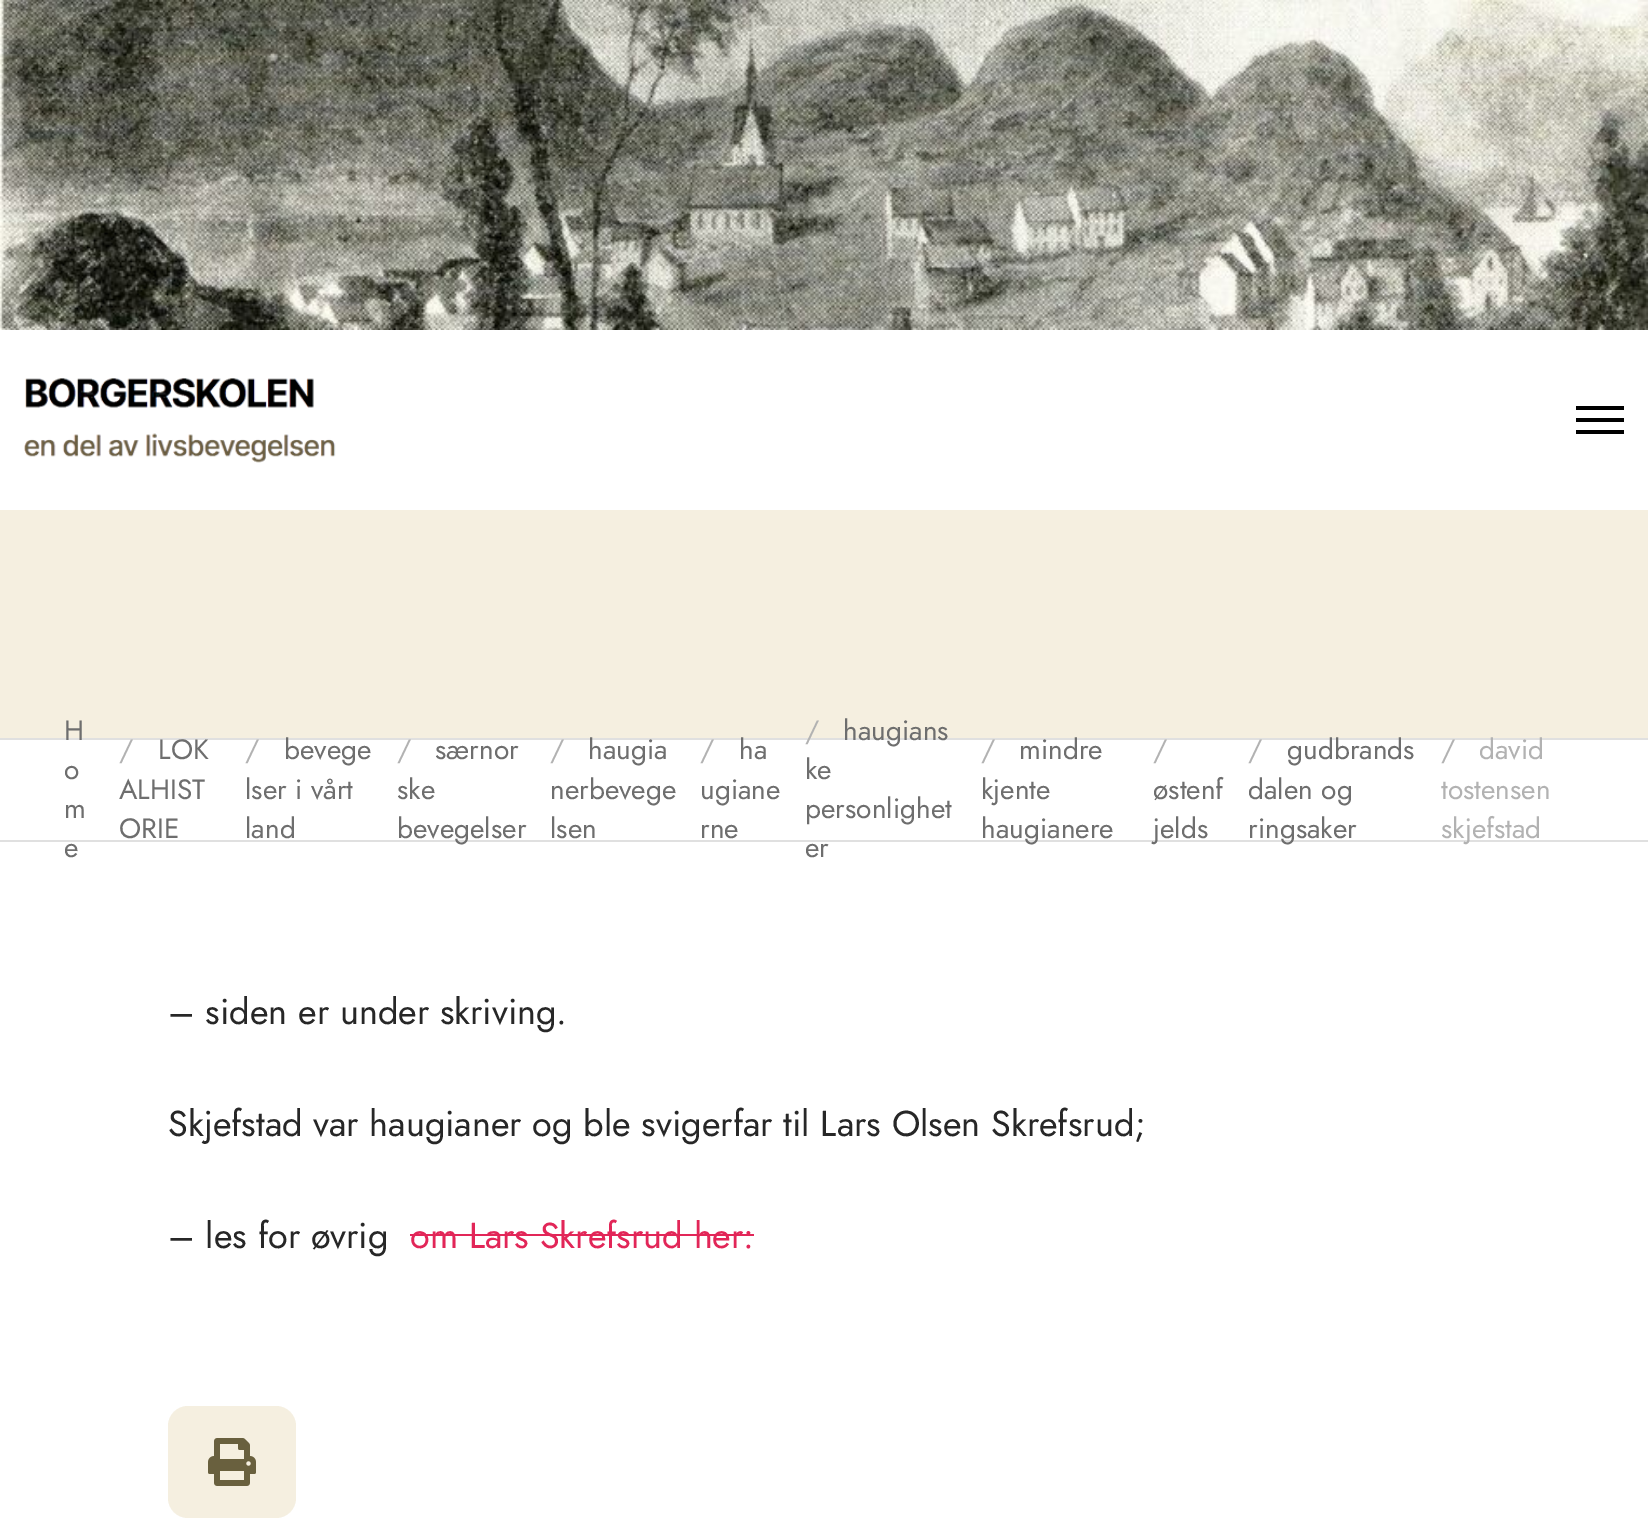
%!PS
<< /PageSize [1648 1524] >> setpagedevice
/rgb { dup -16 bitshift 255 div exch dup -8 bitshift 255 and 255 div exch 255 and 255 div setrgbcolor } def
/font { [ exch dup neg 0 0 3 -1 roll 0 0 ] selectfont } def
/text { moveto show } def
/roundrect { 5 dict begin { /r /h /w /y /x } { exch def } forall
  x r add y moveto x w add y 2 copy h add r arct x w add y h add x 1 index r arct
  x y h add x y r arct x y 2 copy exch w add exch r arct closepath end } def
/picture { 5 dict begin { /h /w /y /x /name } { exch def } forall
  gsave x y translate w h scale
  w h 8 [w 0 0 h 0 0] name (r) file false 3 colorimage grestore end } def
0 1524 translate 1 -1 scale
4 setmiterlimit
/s1 { /Jost-Regular 28 font 16#6E6E6E rgb } def
/s2 { /Jost-Regular 28 font 16#B2B2B2 rgb } def
/s3 { /Jost-Regular 36 font 16#272727 rgb } def
/s4 { /Jost-Regular 36 font 16#E22658 rgb } def
16#FFFFFF rgb
0 0 1648 1524 rectfill
(pic1.raw) 0 0 1648 330 picture
(pic2.raw) 24 378 312 85 picture
16#000000 rgb
1624 430 moveto 1624 434 lineto 1576 434 lineto 1576 430 lineto closepath 1624 418 moveto 1624 422 lineto 1576 422 lineto 1576 418 lineto closepath 1624 406 moveto 1624 410 lineto 1576 410 lineto 1576 406 lineto closepath fill
16#F5EFE0 rgb
0 510 1648 228 rectfill
16#E0E0E0 rgb
0 738 1648 2 rectfill
0 840 1648 2 rectfill
s1
(H) 64 740 text
(o) 64 779 text
(m) 64 818 text
(e) 64 857 text
s2
(/) 119 759 text
s1
(LOK) 158 759 text
(ALHIST) 119 799 text
(ORIE) 119 838 text
s2
(/) 245 759 text
s1
(bevege) 284 759 text
(lser i vårt) 245 799 text
(land) 245 838 text
s2
(/) 397 759 text
s1
(særnor) 435 759 text
(ske) 397 799 text
(bevegelser) 397 838 text
s2
(/) 550 759 text
s1
(haugia) 588 759 text
(nerbevege) 550 799 text
(lsen) 550 838 text
s2
(/) 700 759 text
s1
(ha) 739 759 text
(ugiane) 700 799 text
(rne) 700 838 text
s2
(/) 805 740 text
s1
(haugians) 843 740 text
(ke) 805 779 text
(personlighet) 805 818 text
(er) 805 857 text
s2
(/) 981 759 text
s1
(mindre) 1019 759 text
(kjente) 981 799 text
(haugianere) 981 838 text
s2
(/) 1153 759 text
s1
(østenf) 1153 799 text
(jelds) 1153 838 text
s2
(/) 1248 759 text
s1
(gudbrands) 1287 759 text
(dalen og) 1248 799 text
(ringsaker) 1248 838 text
s2
(/) 1441 759 text
(david) 1479 759 text
(tostensen) 1441 799 text
(skjefstad) 1441 838 text
s3
(– siden er under skriving.) 168 1024 text
(Skjefstad var haugianer og ble svigerfar til Lars Olsen Skrefsrud;) 168 1136 text
(– les for øvrig) 168 1248 text
s4
(om Lars Skrefsrud her:) 410 1248 text
410 1234 344 2 rectfill
16#F5EFE0 rgb
168 1406 128 112 20 roundrect fill
(pic3.raw) 208 1438 48 48 picture
showpage
